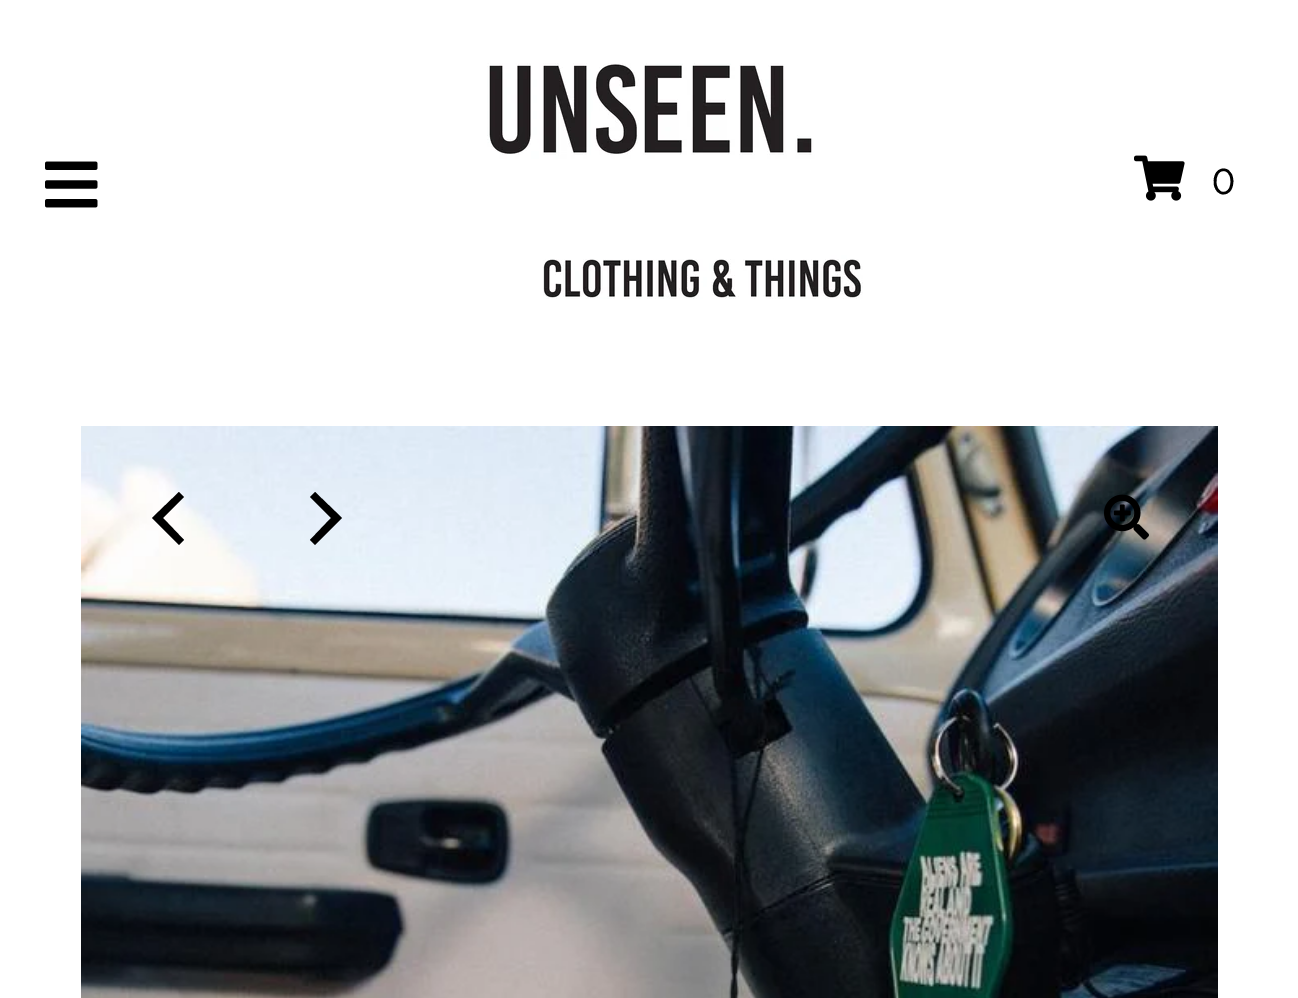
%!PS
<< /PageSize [1298 998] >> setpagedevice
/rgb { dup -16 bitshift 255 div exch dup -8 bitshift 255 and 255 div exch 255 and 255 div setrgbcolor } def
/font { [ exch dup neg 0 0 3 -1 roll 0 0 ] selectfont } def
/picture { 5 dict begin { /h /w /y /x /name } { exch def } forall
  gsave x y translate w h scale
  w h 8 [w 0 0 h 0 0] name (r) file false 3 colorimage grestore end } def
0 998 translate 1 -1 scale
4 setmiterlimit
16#FFFFFF rgb
0 0 1298 998 rectfill
(pic1.raw) 45 161 53 47 picture
(pic2.raw) 487 63 376 236 picture
(pic3.raw) 1134 155 51 46 picture
/Figtree-Regular 36 font
16#000000 rgb
1212 194 moveto 3 0 (0) ashow
(pic4.raw) 81 426 1137 572 picture
(pic5.raw) 1104 494 45 46 picture
152 518 moveto 179 545 lineto 184 540 lineto 163 518 lineto 184 497 lineto 179 492 lineto closepath fill
342 518 moveto 315 492 lineto 310 497 lineto 331 518 lineto 310 540 lineto 315 545 lineto closepath fill
showpage
